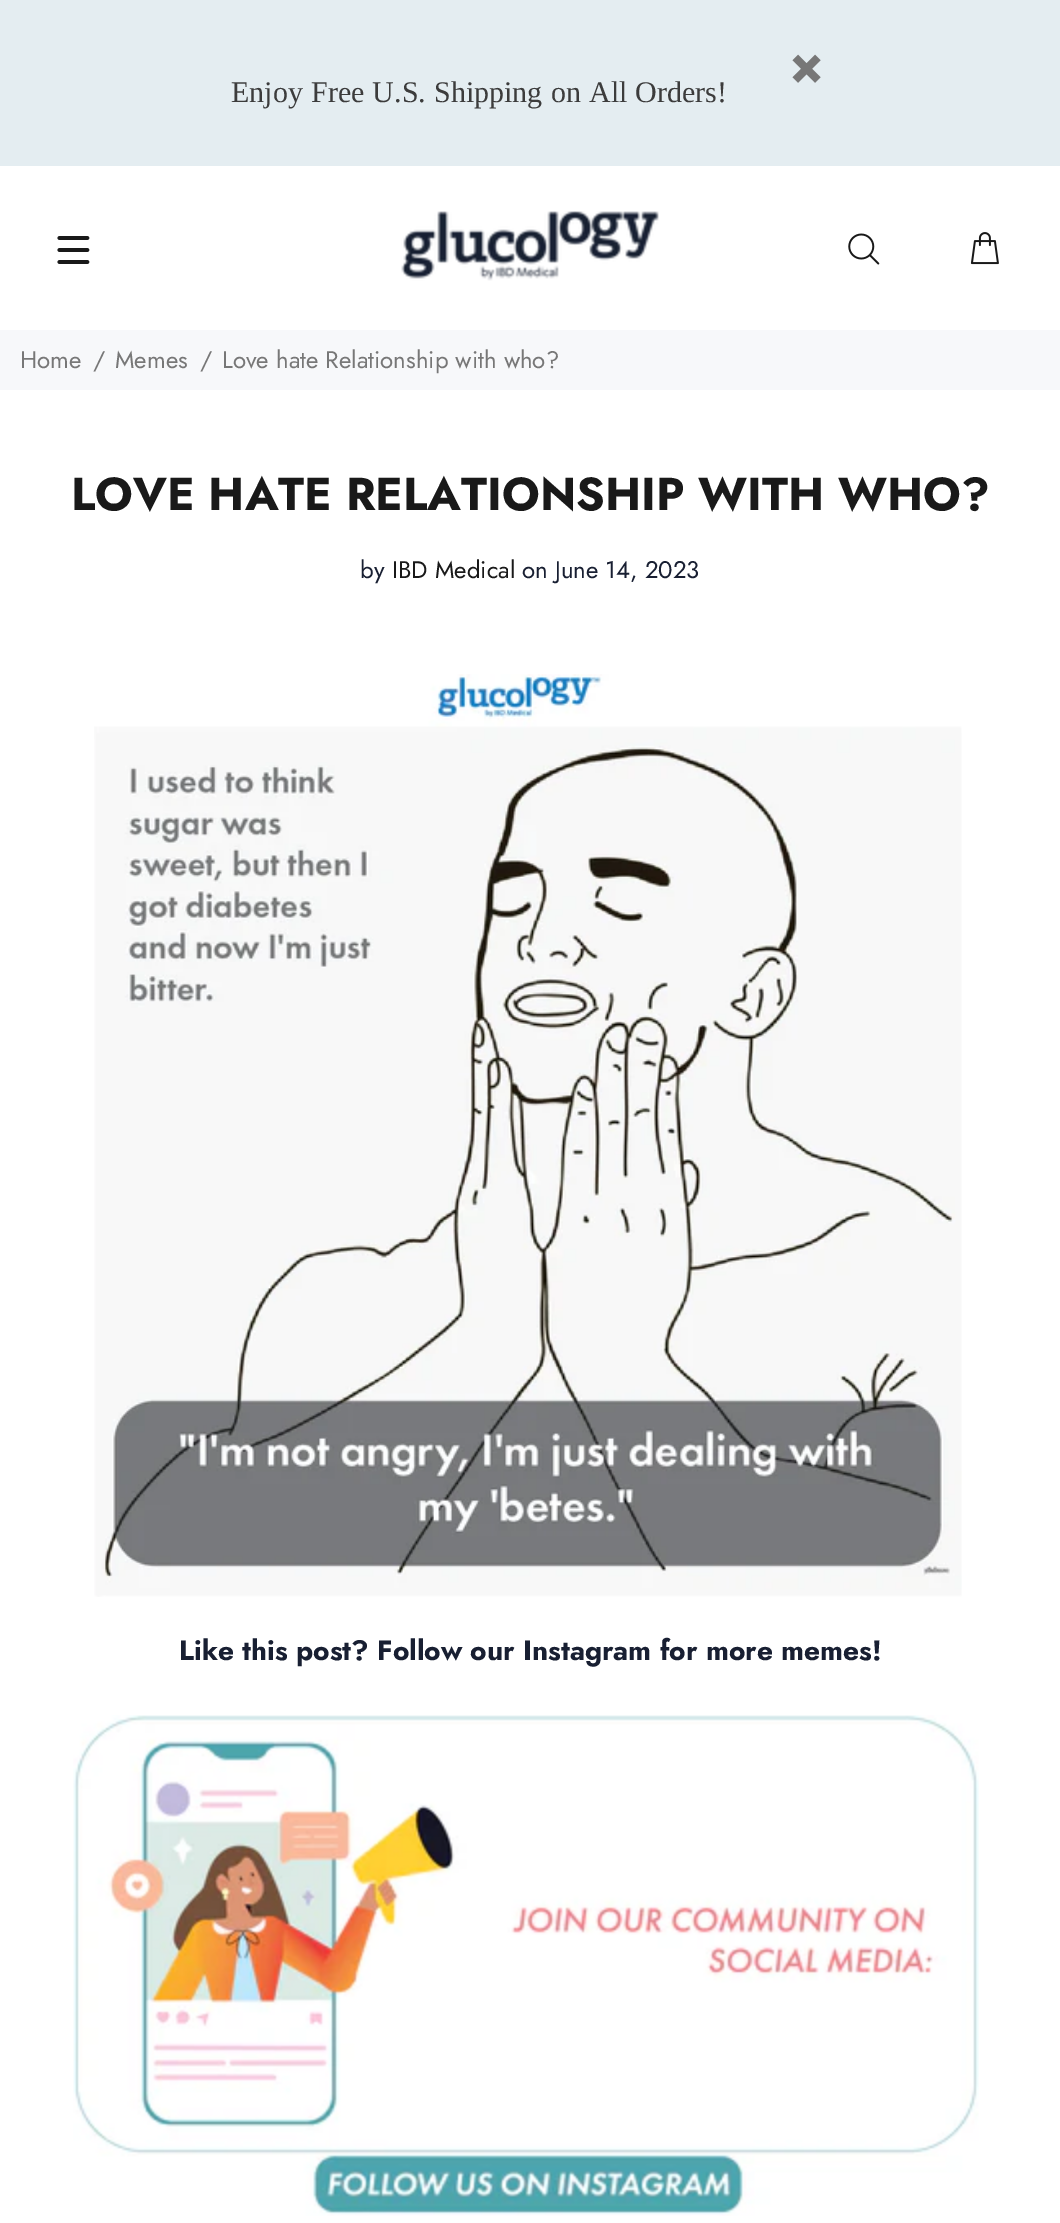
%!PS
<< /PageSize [1060 2223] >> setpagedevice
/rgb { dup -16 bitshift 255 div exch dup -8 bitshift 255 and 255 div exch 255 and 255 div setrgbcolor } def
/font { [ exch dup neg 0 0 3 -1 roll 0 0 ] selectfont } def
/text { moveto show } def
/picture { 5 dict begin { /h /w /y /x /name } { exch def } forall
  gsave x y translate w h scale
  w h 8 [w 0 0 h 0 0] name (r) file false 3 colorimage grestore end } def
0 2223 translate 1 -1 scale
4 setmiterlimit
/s1 { /Jost-Regular 24 font 16#777777 rgb } def
/s2 { /Jost-Bold 46 font 16#191919 rgb } def
/s3 { /Jost-Regular 24 font 16#181F32 rgb } def
/s4 { /Jost-Regular 24 font 16#191919 rgb } def
/s5 { /Jost-Bold 28 font 16#181F32 rgb } def
16#FFFFFF rgb
0 0 1060 2223 rectfill
16#E4EDF1 rgb
0 0 1060 166 rectfill
(pic1.raw) 792 54 29 29 picture
/LiberationSerif-Regular 30 font
16#3C3C3C rgb
231 102 moveto 0.75 0 32 (Enjoy Free U.S. Shipping on All Orders!) widthshow
(pic2.raw) 57 236 33 28 picture
(pic3.raw) 401 211 258 70 picture
(pic4.raw) 848 233 32 32 picture
(pic5.raw) 970 232 29 33 picture
16#F7F8FA rgb
0 330 1060 60 rectfill
s1
(Home) 20 368 text
(/) 93 368 text
(Memes) 115 368 text
(/) 200 368 text
(Love hate Relationship with who?) 222 368 text
s2
(LOVE HATE RELATIONSHIP WITH WHO?) 71 510 text
s3
(by) 360 578 text
s4
(IBD Medical) 392 578 text
s3
(on June 14, 2023) 522 578 text
(pic6.raw) 94 674 868 923 picture
s5
(Like this post? Follow our Instagram for more memes!) 179 1660 text
(pic7.raw) 73 1715 906 501 picture
showpage
